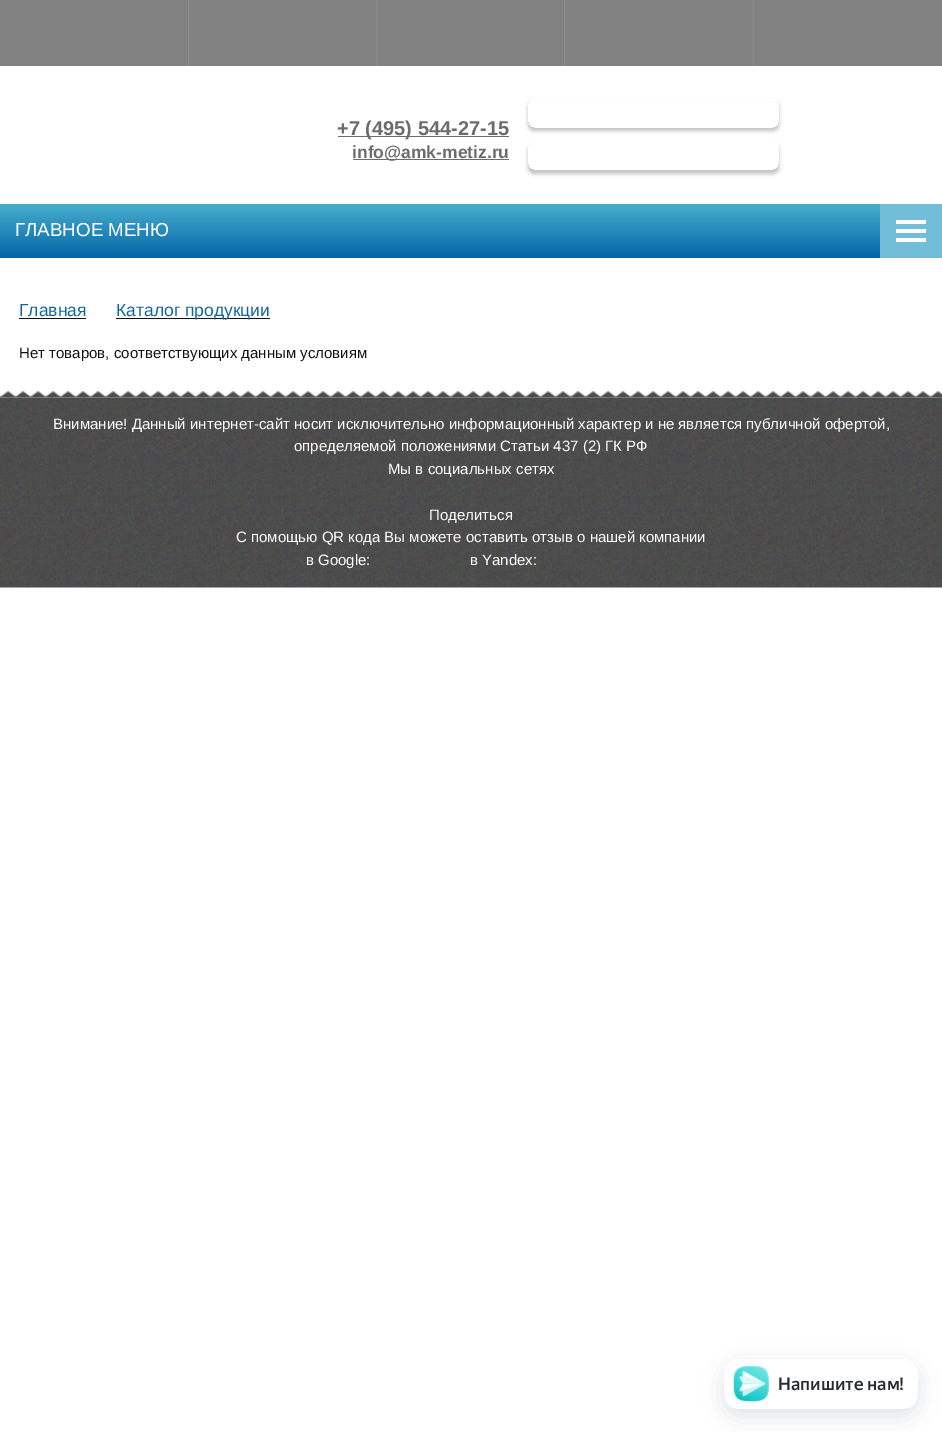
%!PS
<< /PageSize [942 1433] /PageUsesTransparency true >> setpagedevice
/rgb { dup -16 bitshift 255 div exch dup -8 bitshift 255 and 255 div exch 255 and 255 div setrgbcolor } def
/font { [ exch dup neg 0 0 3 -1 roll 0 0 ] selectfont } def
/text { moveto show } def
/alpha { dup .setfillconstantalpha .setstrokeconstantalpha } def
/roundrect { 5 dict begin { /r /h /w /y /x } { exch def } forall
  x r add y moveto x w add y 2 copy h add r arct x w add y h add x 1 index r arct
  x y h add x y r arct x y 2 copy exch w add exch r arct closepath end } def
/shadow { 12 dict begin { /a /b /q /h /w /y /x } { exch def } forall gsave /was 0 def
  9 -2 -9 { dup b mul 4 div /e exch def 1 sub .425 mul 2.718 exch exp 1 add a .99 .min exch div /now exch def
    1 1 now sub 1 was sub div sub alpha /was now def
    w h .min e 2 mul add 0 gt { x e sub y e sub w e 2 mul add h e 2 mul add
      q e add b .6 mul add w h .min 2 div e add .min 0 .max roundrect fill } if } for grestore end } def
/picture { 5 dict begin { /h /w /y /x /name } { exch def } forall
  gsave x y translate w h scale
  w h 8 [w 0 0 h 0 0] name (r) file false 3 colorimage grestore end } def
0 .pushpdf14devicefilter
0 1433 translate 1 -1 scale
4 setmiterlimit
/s1 { /LiberationSans-Bold 20 font 16#6C6C6C rgb } def
/s2 { /LiberationSans-Bold 17.5 font 16#6C6C6C rgb } def
/s3 { /LiberationSans-Regular 18.75 font 16#FFFFFF rgb } def
/s4 { /LiberationSans-Regular 17.5 font 16#1066A3 rgb } def
/s5 { /LiberationSans-Regular 15 font 16#111111 rgb } def
/s6 { /LiberationSans-Regular 15 font 16#FFFFFF rgb } def
/s7 { /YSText-Medium 17.5 font 16#292C33 rgb } def
16#FFFFFF rgb
0 0 942 1433 rectfill
16#818181 rgb
0 0 942 66 rectfill
16#8D8D8C rgb
188 0 1 66 rectfill
376 0 1 66 rectfill
564 0 1 66 rectfill
753 0 1 66 rectfill
16#6C6C6C rgb
338 136 171 1 rectfill
s1
(+7 \(495\) 544-27-15) 337 135 text
353 159 156 1 rectfill
s2
(info@amk-metiz.ru) 352 158 text
gsave
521 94 moveto 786 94 lineto 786 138 lineto 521 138 lineto closepath 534 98 moveto 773 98 lineto 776.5 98 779 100.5 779 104 curveto 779 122 lineto 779 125.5 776.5 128 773 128 curveto 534 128 lineto 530.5 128 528 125.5 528 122 curveto 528 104 lineto 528 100.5 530.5 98 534 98 curveto closepath eoclip newpath
16#323232 rgb
528 101 251 30 6 2 0.3 shadow
grestore
gsave
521 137 moveto 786 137 lineto 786 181 lineto 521 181 lineto closepath 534 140 moveto 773 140 lineto 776.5 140 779 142.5 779 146 curveto 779 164 lineto 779 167.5 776.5 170 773 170 curveto 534 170 lineto 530.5 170 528 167.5 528 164 curveto 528 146 lineto 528 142.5 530.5 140 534 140 curveto closepath eoclip newpath
16#323232 rgb
528 144 251 30 6 2 0.3 shadow
grestore
gsave 0 204 moveto 880 204 lineto 880 258 lineto 0 258 lineto closepath clip newpath
<< /ShadingType 2 /ColorSpace /DeviceRGB /Coords [471 204 471 258] /Extend [true true] /Function << /FunctionType 2 /Domain [0 1] /C0 [0.282 0.682 0.804] /C1 [0.016 0.396 0.655] /N 1 >> >> shfill grestore
s3
(ГЛАВНОЕ МЕНЮ) 15 236 text
16#72BED8 rgb
880 204 62 54 rectfill
16#FFFFFF rgb
896 220 30 4 rectfill
896 229 30 4 rectfill
896 238 30 4 rectfill
s4
(Главная) 19 316 text
16#111111 rgb
19 318 67 1 rectfill
116 318 154 1 rectfill
s4
(Каталог продукции) 116 316 text
s5
(Нет товаров, соответствующих данным условиям) 19 358 text
(pic1.raw) 0 391 942 7 picture
(pic2.raw) 0 397 942 191 picture
s6
(Внимание! Данный интернет-сайт носит исключительно информационный характер и не является публичной офертой,) 53 429 text
(определяемой положениями Статьи 437 \(2\) ГК РФ) 294 451 text
(Мы в социальных сетях) 388 474 text
(Поделиться) 429 520 text
(С помощью QR кода Вы можете оставить отзыв о нашей компании) 236 542 text
(в Google:) 306 565 text
(в Yandex:) 470 565 text
16#0E152F rgb
724 1366 194 50 16 11 0.13 shadow
16#FFFFFF rgb
724 1359 194 50 16 roundrect fill
(pic3.raw) 733 1366 36 36 picture
s7
(Напишите нам!) 778 1390 text
.poppdf14devicefilter showpage
